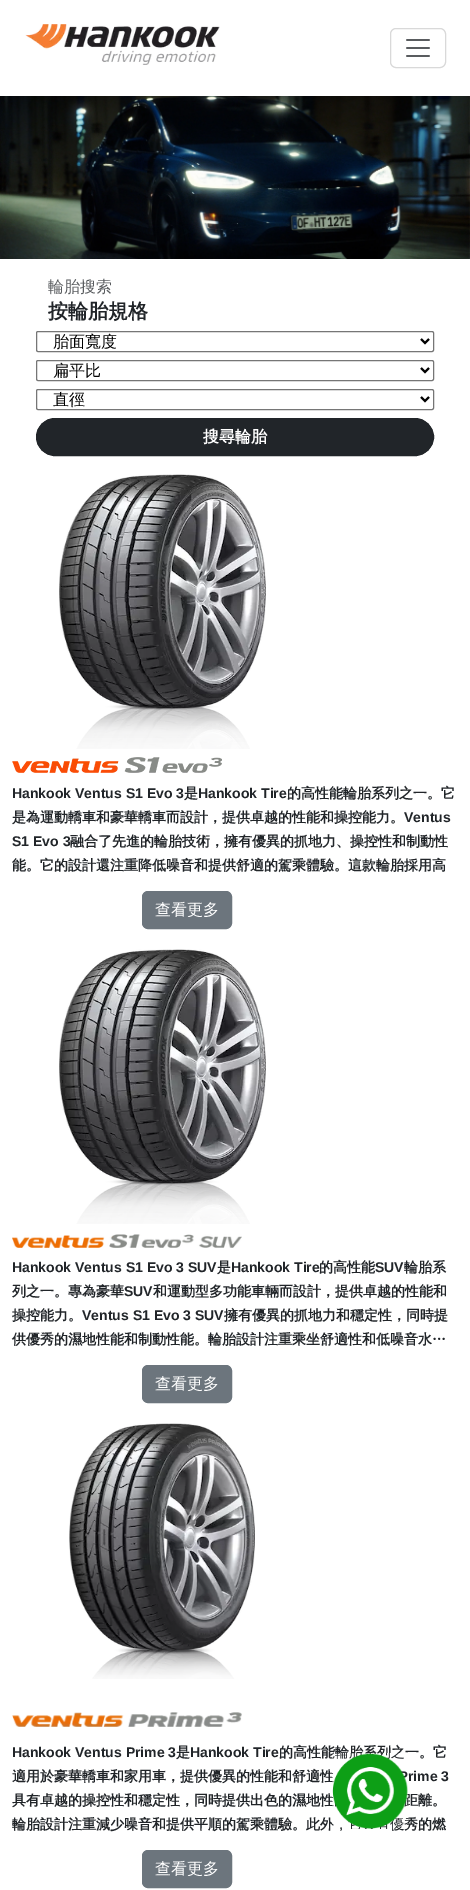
%!PS
<< /PageSize [470 1890] >> setpagedevice
/rgb { dup -16 bitshift 255 div exch dup -8 bitshift 255 and 255 div exch 255 and 255 div setrgbcolor } def
/font { [ exch dup neg 0 0 3 -1 roll 0 0 ] selectfont } def
/text { moveto show } def
/roundrect { 5 dict begin { /r /h /w /y /x } { exch def } forall
  x r add y moveto x w add y 2 copy h add r arct x w add y h add x 1 index r arct
  x y h add x y r arct x y 2 copy exch w add exch r arct closepath end } def
/picture { 5 dict begin { /h /w /y /x /name } { exch def } forall
  gsave x y translate w h scale
  w h 8 [w 0 0 h 0 0] name (r) file false 3 colorimage grestore end } def
0 1890 translate 1 -1 scale
4 setmiterlimit
/s1 { /WenQuanYiZenHei-Medium 16 font 16#595C5F rgb } def
/s2 { /WenQuanYiZenHei-Bold 20 font 16#212529 rgb } def
/s3 { /WenQuanYiZenHei-Medium 16 font 16#000000 rgb } def
/s4 { /WenQuanYiZenHei-Bold 16 font 16#FFFFFF rgb } def
/s5 { /LiberationSans-Bold 14 font 16#212529 rgb } def
/s6 { /WenQuanYiZenHei-Bold 14 font 16#212529 rgb } def
/s7 { /WenQuanYiZenHei-Medium 16 font 16#FFFFFF rgb } def
16#FFFFFF rgb
0 0 470 1890 rectfill
(pic1.raw) 25 24 195 41 picture
16#D9D9D9 rgb
390.5 28.5 55 39 5.5 roundrect stroke
(pic2.raw) 406 39 24 18 picture
(pic3.raw) 0 96 470 163 picture
s1
(輪胎搜索) 48 292 text
s2
(按輪胎規格) 48 318 text
16#767676 rgb
36.5 331.5 397 20 1.5 roundrect stroke
16#000000 rgb
2 setlinewidth
421 339 moveto 425 343 lineto 429 339 lineto stroke
s3
(胎面寬度) 53 347 text
16#767676 rgb
1 setlinewidth
36.5 360.5 397 20 1.5 roundrect stroke
16#000000 rgb
2 setlinewidth
421 368 moveto 425 372 lineto 429 368 lineto stroke
(扁平比) 53 376 text
16#767676 rgb
1 setlinewidth
36.5 389.5 397 20 1.5 roundrect stroke
16#000000 rgb
2 setlinewidth
421 397 moveto 425 401 lineto 429 397 lineto stroke
(直徑) 53 405 text
16#212529 rgb
36.5 418.5 397 37 18.5 roundrect gsave fill grestore
1 setlinewidth
stroke
s4
(搜尋輪胎) 203 442 text
(pic4.raw) 59 474 207 275 picture
(pic5.raw) 12 757 210 16 picture
s5
(Hankook Ventus S1 Evo 3) 12 798 text
s6
(是) 184 798 text
s5
(Hankook Tire) 198 798 text
s6
(的高性能輪胎系列之一。它) 287 798 text
(是為運動轎車和豪華轎車而設計，提供卓越的性能和操控能力。) 12 822 text
s5
(Ventus) 404 822 text
(S1 Evo 3) 12 846 text
s6
(融合了先進的輪胎技術，擁有優異的抓地力、操控性和制動性) 70 846 text
(能。它的設計還注重降低噪音和提供舒適的駕乘體驗。這款輪胎採用高) 12 870 text
16#6C757D rgb
142.5 891.5 89 37 5.5 roundrect gsave fill grestore
stroke
s7
(查看更多) 155 915 text
(pic4.raw) 59 949 207 275 picture
(pic6.raw) 12 1234 230 14 picture
s5
(Hankook Ventus S1 Evo 3 SUV) 12 1272 text
s6
(是) 217 1272 text
s5
(Hankook Tire) 231 1272 text
s6
(的高性能) 319 1272 text
s5
(SUV) 375 1272 text
s6
(輪胎系) 404 1272 text
(列之一。專為豪華) 12 1296 text
s5
(SUV) 124 1296 text
s6
(和運動型多功能車輛而設計，提供卓越的性能和) 153 1296 text
(操控能力。) 12 1320 text
s5
(Ventus S1 Evo 3 SUV) 82 1320 text
s6
(擁有優異的抓地力和穩定性，同時提) 224 1320 text
(供優秀的濕地性能和制動性能。輪胎設計注重乘坐舒適性和低噪音水…) 12 1344 text
16#6C757D rgb
142.5 1365.5 89 37 5.5 roundrect gsave fill grestore
stroke
s7
(查看更多) 155 1389 text
(pic7.raw) 69 1423 186 256 picture
(pic8.raw) 12 1712 230 15 picture
s5
(Hankook Ventus Prime 3) 12 1757 text
s6
(是) 176 1757 text
s5
(Hankook Tire) 190 1757 text
s6
(的高性能輪胎系列之一。它) 279 1757 text
(適用於豪華轎車和家用車，提供優異的性能和舒適性) 12 1781 text
s5
(rime 3) 408 1781 text
s6
(具有卓越的操控性和穩定性，同時提供出色的濕地性) 12 1805 text
(距離。) 404 1805 text
(輪胎設計注重減少噪音和提供平順的駕乘體驗。此外，) 12 1829 text
(優秀的燃) 390 1829 text
16#6C757D rgb
142.5 1850.5 89 37 5.5 roundrect gsave fill grestore
stroke
s7
(查看更多) 155 1874 text
(pic9.raw) 332 1753 76 76 picture
showpage
